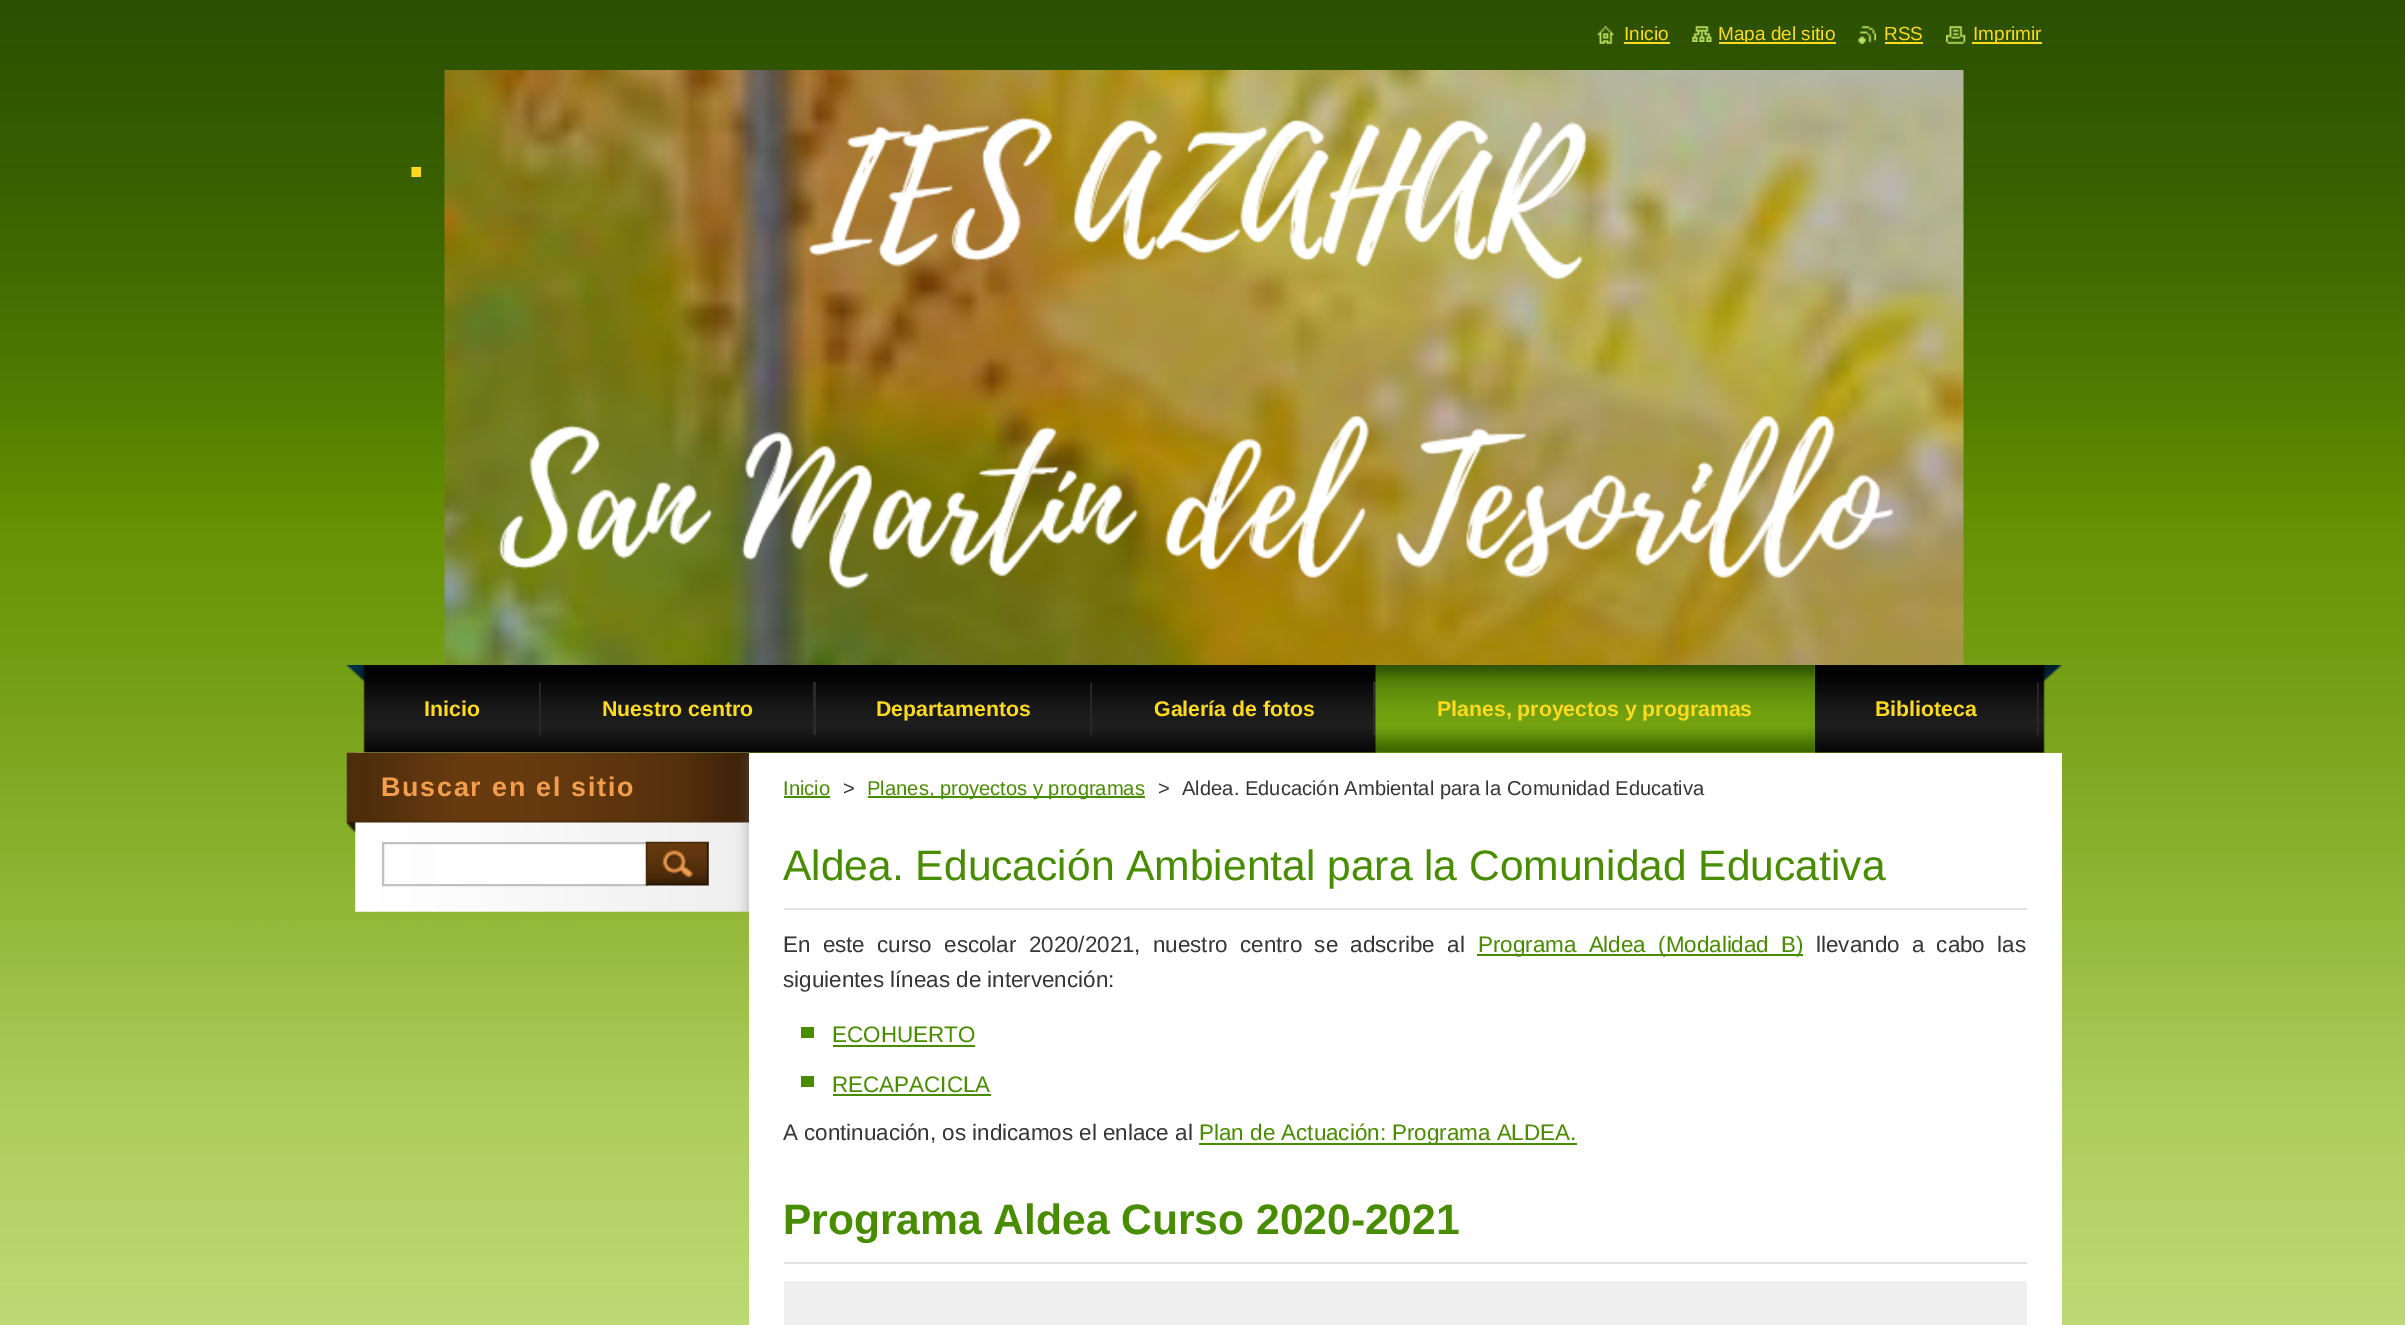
%!PS
<< /PageSize [2405 1325] >> setpagedevice
/rgb { dup -16 bitshift 255 div exch dup -8 bitshift 255 and 255 div exch 255 and 255 div setrgbcolor } def
/font { [ exch dup neg 0 0 3 -1 roll 0 0 ] selectfont } def
/text { moveto show } def
/picture { 5 dict begin { /h /w /y /x /name } { exch def } forall
  gsave x y translate w h scale
  w h 8 [w 0 0 h 0 0] name (r) file false 3 colorimage grestore end } def
0 1325 translate 1 -1 scale
4 setmiterlimit
/s1 { /LiberationSans-Regular 19 font 16#FDDA1E rgb } def
/s2 { /LiberationSans-Bold 67 font 16#FDDA1E rgb } def
/s3 { /LiberationSans-Bold 21.25 font 16#FDDA1E rgb } def
/s4 { /LiberationSans-Regular 20.15 font 16#488C00 rgb } def
/s5 { /LiberationSans-Regular 20.15 font 16#363636 rgb } def
/s6 { /LiberationSans-Regular 42.55 font 16#488C00 rgb } def
/s7 { /LiberationSans-Regular 22.4 font 16#363636 rgb } def
/s8 { /LiberationSans-Regular 22.4 font 16#488C00 rgb } def
/s9 { /LiberationSans-Bold 42.55 font 16#488C00 rgb } def
16#FFFFFF rgb
0 0 2405 1325 rectfill
(pic1.raw) 0 0 2405 1325 picture
(pic2.raw) 1597 26 17 18 picture
s1
(Inicio) 1624 40 text
1624 42 46 2 rectfill
(pic3.raw) 1692 26 20 16 picture
1719 42 117 2 rectfill
(Mapa del sitio) 1718 40 text
(pic4.raw) 1858 26 18 18 picture
(RSS) 1884 40 text
1885 42 38 2 rectfill
(pic5.raw) 1946 26 20 18 picture
1972 42 70 2 rectfill
(Imprimir) 1973 40 text
s2
(.) 407 177 text
(pic6.raw) 444 70 1520 595 picture
(pic7.raw) 346 665 1716 88 picture
(pic8.raw) 539 682 2 53 picture
s3
(Inicio) 424 716 text
16#2A2A2A rgb
813 682 3 53 rectfill
s3
(Nuestro centro) 602 716 text
(pic9.raw) 1090 682 2 53 picture
(Departamentos) 876 716 text
16#2A2A2A rgb
1373 682 3 53 rectfill
s3
(Galería de fotos) 1154 716 text
16#709F10 rgb
1376 665 439 88 rectfill
(pic10.raw) 1375 665 440 88 picture
s3
(Planes, proyectos y programas) 1437 716 text
(pic8.raw) 2037 682 2 53 picture
(Biblioteca) 1875 716 text
(pic11.raw) 355 752 394 160 picture
(pic12.raw) 346 752 403 81 picture
/LiberationSans-Bold 26.9 font
16#F39E4C rgb
381 796 moveto 1.75 0 (Buscar en el sitio) ashow
16#FFFFFF rgb
436 844 210 40 rectfill
16#C1C1C1 rgb
2 setlinewidth
383 843 264 42 rectstroke
(pic13.raw) 645 841 64 45 picture
16#FFFFFF rgb
749 753 1313 572 rectfill
s4
(Inicio) 783 795 text
784 796 46 2 rectfill
s5
(>) 843 795 text
16#488C00 rgb
868 796 277 2 rectfill
(Planes, proyectos y programas) 867 795 text
s5
(>) 1158 795 text
(Aldea. Educación Ambiental para la Comunidad Educativa) 1182 795 text
16#E1E1E1 rgb
784 908 1243 2 rectfill
s6
(Aldea. Educación Ambiental para la Comunidad Educativa) 783 880 text
/LiberationSans-Regular 22.4 font
16#363636 rgb
783 952 moveto 6 0 32 (En este curso escolar 2020/2021, nuestro centro se adscribe al) widthshow
16#488C00 rgb
1477 954 326 2 rectfill
1478 952 moveto 6 0 32 (Programa Aldea \(Modalidad B\)) widthshow
16#363636 rgb
1816 952 moveto 6 0 32 (llevando a cabo las) widthshow
(siguientes líneas de intervención:) 783 987 text
16#488C00 rgb
801 1027 13 11 rectfill
(ECOHUERTO) 832 1042 text
833 1045 142 2 rectfill
801 1076 13 11 rectfill
(RECAPACICLA) 832 1092 text
833 1094 158 2 rectfill
s7
(A continuación, os indicamos el enlace al) 783 1140 text
16#488C00 rgb
1199 1143 378 2 rectfill
(Plan de Actuación: Programa ALDEA.) 1199 1140 text
16#E1E1E1 rgb
784 1262 1243 2 rectfill
s9
(Programa Aldea Curso 2020-2021) 783 1234 text
16#EFEFEF rgb
784 1281 1243 44 rectfill
showpage
